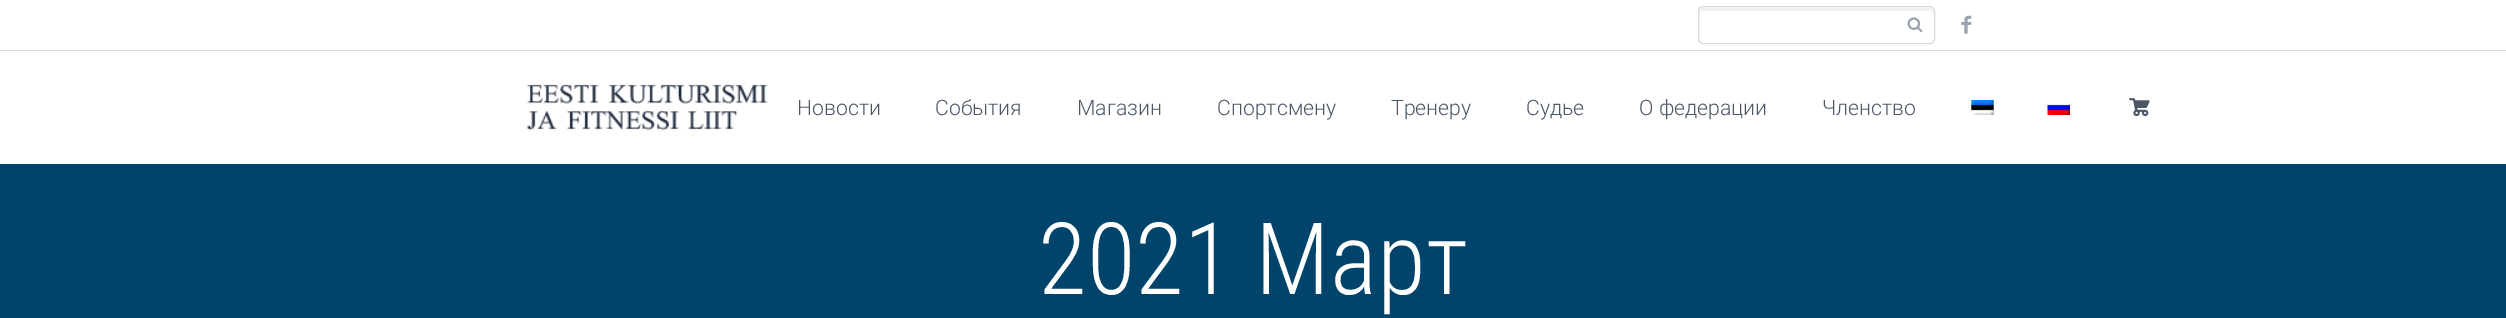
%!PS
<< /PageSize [2506 318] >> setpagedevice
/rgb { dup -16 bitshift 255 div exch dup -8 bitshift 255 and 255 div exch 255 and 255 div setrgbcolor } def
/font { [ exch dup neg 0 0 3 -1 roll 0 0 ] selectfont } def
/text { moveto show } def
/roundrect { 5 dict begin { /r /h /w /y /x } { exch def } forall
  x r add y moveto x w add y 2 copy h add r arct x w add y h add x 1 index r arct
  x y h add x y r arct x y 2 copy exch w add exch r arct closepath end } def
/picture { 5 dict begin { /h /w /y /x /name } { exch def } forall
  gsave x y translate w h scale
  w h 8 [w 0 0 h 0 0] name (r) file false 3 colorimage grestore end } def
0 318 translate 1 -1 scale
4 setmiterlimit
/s1 { /Roboto-Light 21.25 font 16#4C5867 rgb } def
/s2 { /RobotoCondensed-Light 100 font 16#FFFFFF rgb } def
16#FFFFFF rgb
0 0 2506 318 rectfill
16#D2DAE1 rgb
0 50 2506 1 rectfill
16#EFF1F2 rgb
1702 11 moveto 1930 11 lineto 1932 11 1934 13 1934 15 curveto 1934 12 lineto 1934 10 1932 8 1930 8 curveto 1703 8 lineto 1701 8 1699 10 1699 12 curveto 1699 15 lineto 1699 13 1700 11 1702 11 curveto closepath fill
16#D2DAE1 rgb
1698.5 6.5 236 37 4.5 roundrect stroke
(pic1.raw) 1907 17 16 16 picture
(pic2.raw) 1961 15 11 19 picture
(pic3.raw) 527 84 241 47 picture
s1
(Новости) 797 115 text
(События) 935 115 text
(Магазин) 1077 115 text
(Спортсмену) 1217 115 text
(Тренеру) 1391 115 text
(Судье) 1526 115 text
(О федерации) 1639 115 text
(Членство) 1822 115 text
(pic4.raw) 1971 100 23 15 picture
(pic5.raw) 2047 102 23 13 picture
(pic6.raw) 2129 98 21 19 picture
16#00446B rgb
0 164 2506 154 rectfill
s2
(2021 Март) 1038 294 text
showpage
